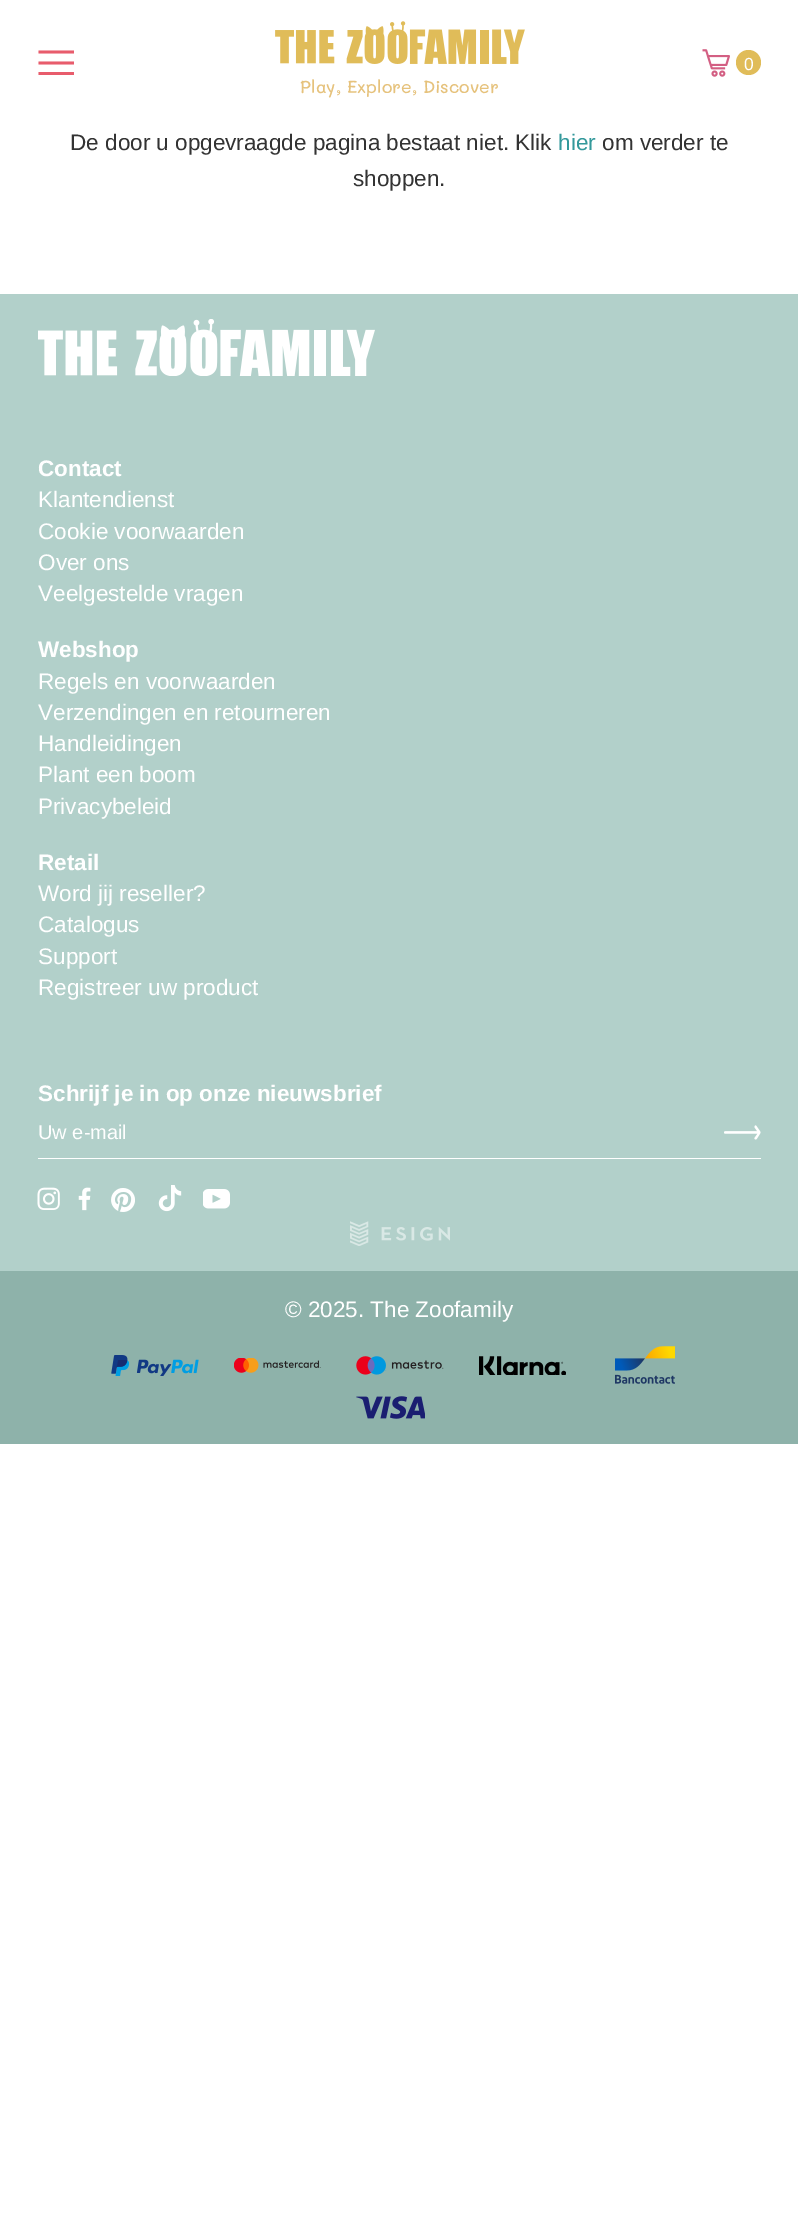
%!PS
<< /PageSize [798 2225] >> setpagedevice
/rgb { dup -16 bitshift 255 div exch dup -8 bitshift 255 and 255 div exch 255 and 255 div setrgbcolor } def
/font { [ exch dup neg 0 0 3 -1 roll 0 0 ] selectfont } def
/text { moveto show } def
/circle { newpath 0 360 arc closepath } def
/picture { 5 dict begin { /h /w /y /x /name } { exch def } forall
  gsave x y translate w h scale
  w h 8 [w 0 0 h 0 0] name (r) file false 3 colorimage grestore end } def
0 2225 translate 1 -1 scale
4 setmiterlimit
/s1 { /LiberationSans-Regular 17.5 font 16#FFFFFF rgb } def
/s2 { /Mali-Medium 17.5 font 16#E6C27C rgb } def
/s3 { /LiberationSans-Regular 22.5 font 16#333333 rgb } def
/s4 { /LiberationSans-Regular 22.5 font 16#33999B rgb } def
/s5 { /LiberationSans-Bold 22.5 font 16#FFFFFF rgb } def
/s6 { /LiberationSans-Regular 22.5 font 16#FFFFFF rgb } def
/s7 { /LiberationSans-Regular 20 font 16#FFFFFF rgb } def
16#FFFFFF rgb
0 0 798 2225 rectfill
16#E85C6C rgb
2.7 setlinewidth
38.5 52 moveto 74 52 lineto 38.5 63 moveto 74 63 lineto 38.5 73.5 moveto 74 73.5 lineto stroke
(pic1.raw) 702 49 28 28 picture
16#E0BC59 rgb
748.5 62.5 12.5 circle fill
s1
(0) 744 70 text
(pic2.raw) 275 21 250 43 picture
s2
(Play, Explore, Discover) 300 93 text
s3
(De door u opgevraagde pagina bestaat niet. Klik) 70 150 text
s4
(hier) 558 150 text
s3
(om verder te) 602 150 text
(shoppen.) 353 186 text
16#B2D0CA rgb
0 294 798 977 rectfill
(pic3.raw) 38 319 337 57 picture
s5
(Contact) 38 476 text
s6
(Klantendienst) 38 507 text
(Cookie voorwaarden) 38 539 text
(Over ons) 38 570 text
(Veelgestelde vragen) 38 601 text
s5
(Webshop) 38 657 text
s6
(Regels en voorwaarden) 38 689 text
(Verzendingen en retourneren) 38 720 text
(Handleidingen) 38 751 text
(Plant een boom) 38 782 text
(Privacybeleid) 38 814 text
s5
(Retail) 38 870 text
s6
(Word jij reseller?) 38 901 text
(Catalogus) 38 932 text
(Support) 38 964 text
(Registreer uw product) 38 995 text
s5
(Schrijf je in op onze nieuwsbrief) 38 1101 text
38 1158 723 1 rectfill
s7
(Uw e-mail) 38 1139 text
(pic4.raw) 724 1125 37 15 picture
(pic5.raw) 37 1187 23 23 picture
(pic6.raw) 78 1187 13 24 picture
(pic7.raw) 111 1188 24 24 picture
(pic8.raw) 158 1185 24 27 picture
(pic9.raw) 203 1189 27 20 picture
(pic10.raw) 350 1221 100 25 picture
16#8EB2AA rgb
0 1271 798 173 rectfill
s6
(© 2025. The Zoofamily) 285 1317 text
(pic11.raw) 111 1355 88 21 picture
(pic12.raw) 234 1358 87 15 picture
(pic13.raw) 356 1356 88 19 picture
(pic14.raw) 479 1356 87 19 picture
(pic15.raw) 615 1346 60 38 picture
(pic16.raw) 356 1396 69 23 picture
showpage
